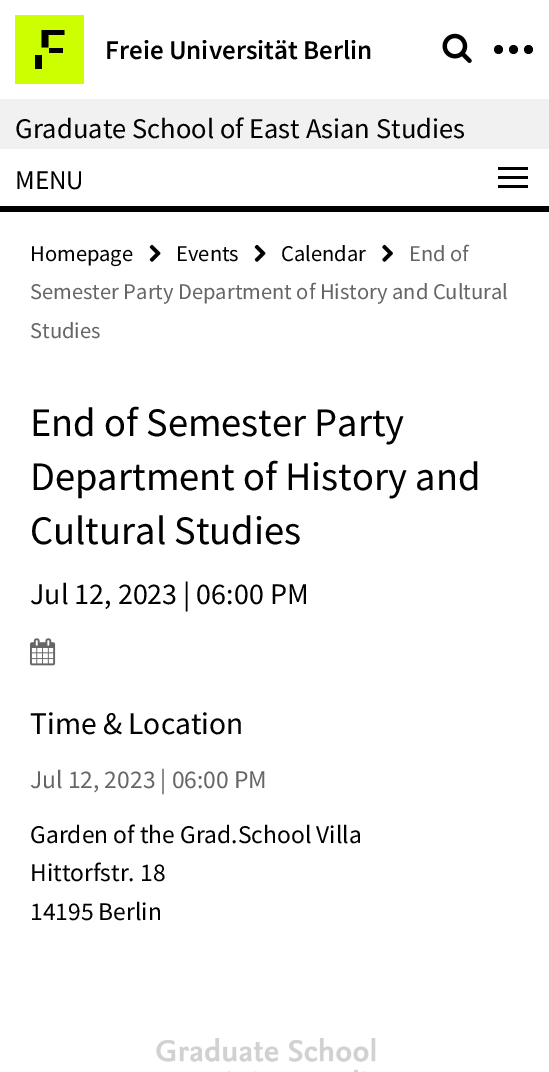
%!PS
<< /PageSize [549 1072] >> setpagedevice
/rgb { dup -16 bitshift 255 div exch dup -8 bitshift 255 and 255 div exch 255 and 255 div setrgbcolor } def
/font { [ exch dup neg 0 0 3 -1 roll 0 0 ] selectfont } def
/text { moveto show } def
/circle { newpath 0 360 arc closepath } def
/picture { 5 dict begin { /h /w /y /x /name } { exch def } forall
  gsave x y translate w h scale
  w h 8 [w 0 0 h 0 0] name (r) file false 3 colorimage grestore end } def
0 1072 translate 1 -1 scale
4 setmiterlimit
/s1 { /SourceSansPro-SemiBold 27 font 16#000000 rgb } def
/s2 { /SourceSansPro-Regular 28.5 font 16#000000 rgb } def
/s3 { /SourceSansPro-Regular 27 font 16#000000 rgb } def
/s4 { /SourceSansPro-Regular 22.5 font 16#000000 rgb } def
/s5 { /SourceSansPro-Regular 22.5 font 16#666666 rgb } def
/s6 { /SourceSansPro-Regular 40.5 font 16#000000 rgb } def
/s7 { /SourceSansPro-Regular 30 font 16#000000 rgb } def
/s8 { /SourceSansPro-Regular 31.5 font 16#000000 rgb } def
/s9 { /SourceSansPro-Regular 25.5 font 16#666666 rgb } def
/s10 { /SourceSansPro-Regular 25.5 font 16#000000 rgb } def
16#FFFFFF rgb
0 0 549 1072 rectfill
16#CCFF00 rgb
15 15 69 69 rectfill
16#000000 rgb
41.5 30 moveto 64.5 30 lineto 64.5 35 lineto 48.5 35 lineto 48.5 47.5 lineto 41.5 47.5 lineto closepath fill
49 48 14 5 rectfill
35 55 7 14 rectfill
s1
(Freie Universität Berlin) 105 59 text
(pic1.raw) 442 33 30 30 picture
498.5 49.5 4.5 circle fill
513.5 49.5 4.5 circle fill
528.5 49.5 4.5 circle fill
16#F1F1F1 rgb
0 99 549 50 rectfill
s2
(Graduate School of East Asian Studies) 15 138 text
0 206 549 6 rectfill
s3
(MENU) 15 189 text
498 167 30 3 rectfill
498 176 30 3 rectfill
498 185 30 3 rectfill
s4
(Homepage) 30 261 text
(pic2.raw) 149 244 12 18 picture
(Events) 176 261 text
(pic2.raw) 254 244 12 18 picture
(Calendar) 281 261 text
(pic3.raw) 382 244 11 18 picture
s5
(End of) 409 261 text
(Semester Party Department of History and Cultural) 30 299 text
(Studies) 30 338 text
s6
(End of Semester Party) 30 436 text
(Department of History and) 30 490 text
(Cultural Studies) 30 544 text
s7
(Jul 12, 2023 | 06:00 PM) 30 604 text
(pic4.raw) 30 638 26 28 picture
s8
(Time & Location) 30 734 text
s9
(Jul 12, 2023 | 06:00 PM) 30 788 text
s10
(Garden of the Grad.School Villa) 30 843 text
(Hittorfstr. 18) 30 881 text
(14195 Berlin) 30 920 text
(pic5.raw) 156 1038 220 34 picture
showpage
